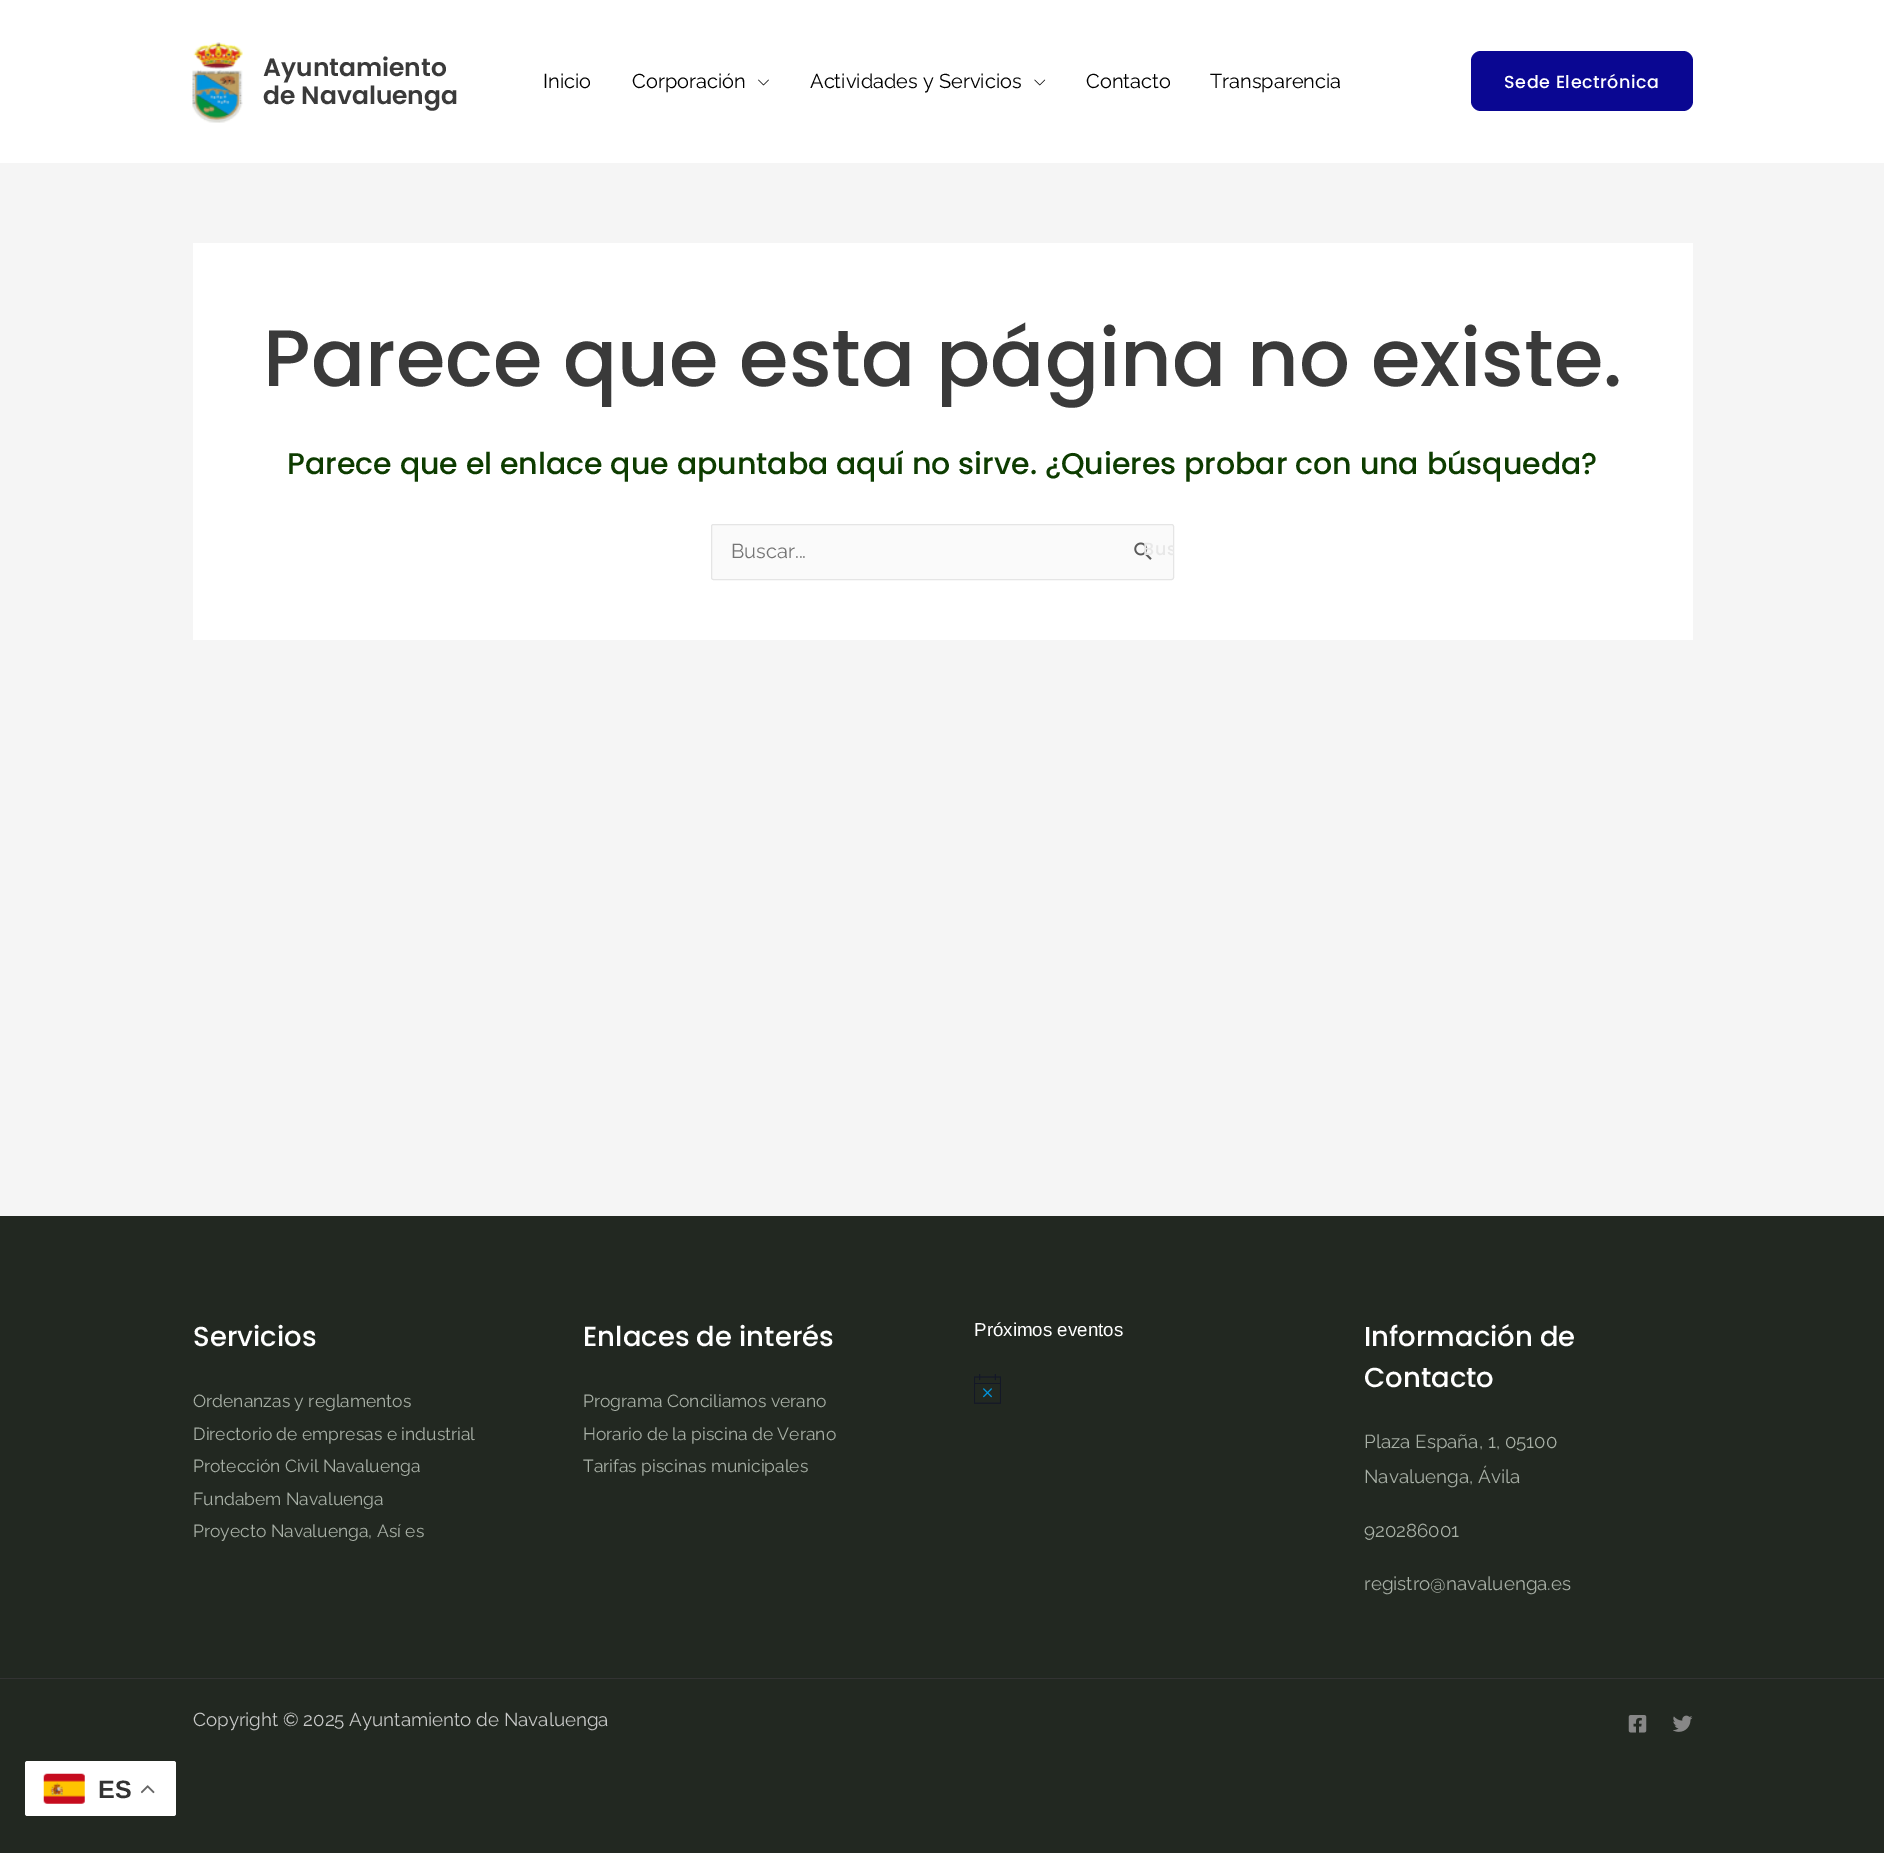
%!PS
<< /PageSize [1884 1853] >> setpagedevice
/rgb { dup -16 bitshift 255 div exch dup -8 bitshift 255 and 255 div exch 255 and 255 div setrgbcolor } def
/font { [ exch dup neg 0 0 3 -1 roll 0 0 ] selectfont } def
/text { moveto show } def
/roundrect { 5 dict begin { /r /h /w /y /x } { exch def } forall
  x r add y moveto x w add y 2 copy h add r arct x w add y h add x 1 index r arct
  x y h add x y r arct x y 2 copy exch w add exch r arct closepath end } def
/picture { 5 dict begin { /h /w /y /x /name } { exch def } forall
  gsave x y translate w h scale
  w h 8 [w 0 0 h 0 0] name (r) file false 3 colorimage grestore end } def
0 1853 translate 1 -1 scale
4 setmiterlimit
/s1 { /Poppins-SemiBold 25 font 16#3A3A3A rgb } def
/s2 { /Raleway-Thin 20 font 16#000000 rgb } def
/s3 { /Poppins-Medium 80 font 16#3A3A3A rgb } def
/s4 { /Poppins-Medium 30 font 16#0D3C00 rgb } def
/s5 { /Raleway-Thin 20 font 16#757575 rgb } def
/s6 { /Poppins-Medium 27.5 font 16#FFFFFF rgb } def
/s7 { /Raleway-Thin 17.5 font 16#A8B0A6 rgb } def
/s8 { /LiberationSans-Regular 18.75 font 16#FFFFFF rgb } def
/s9 { /Raleway-Thin 18.75 font 16#A8B0A6 rgb } def
/s10 { /Raleway-Thin 18.75 font 16#C8C9C8 rgb } def
/s11 { /LiberationSans-Bold 25 font 16#333333 rgb } def
16#F5F5F5 rgb
0 0 1884 1853 rectfill
16#FFFFFF rgb
0 0 1884 163 rectfill
(pic1.raw) 192 42 51 81 picture
s1
(Ayuntamiento) 263 76 text
(de Navaluenga) 263 104 text
s2
(Inicio) 543 88 text
(Corporación) 632 88 text
(pic2.raw) 758 79 11 7 picture
(Actividades y Servicios) 810 88 text
(pic3.raw) 1034 79 12 7 picture
(Contacto) 1086 88 text
(Transparencia) 1210 88 text
16#0A0792 rgb
1471 51 222 60 10 roundrect fill
/Poppins-Medium 17.5 font
16#FFFFFF rgb
1504 88 moveto 0.6 0 (Sede Electrónica) ashow
193 243 1500 397 rectfill
s3
(Parece que esta página no existe.) 263 386 text
s4
(Parece que el enlace que apuntaba aquí no sirve. ¿Quieres probar con una búsqueda?) 287 474 text
16#FAFAFA rgb
711.5 524.5 462 55 2 roundrect gsave fill grestore
16#E5E5E5 rgb
stroke
(pic4.raw) 1134 542 18 18 picture
s5
(Buscar...) 731 558 text
gsave
1118 524 56 50 2.5 roundrect clip newpath
/Poppins-Medium 17.5 font
16#E8E8E8 rgb
1143 555 moveto 0.6 0 (Bus) ashow
grestore
16#222821 rgb
0 1216 1884 637 rectfill
s6
(Servicios) 193 1346 text
s7
(Ordenanzas y reglamentos) 193 1407 text
(Directorio de empresas e industrial) 193 1440 text
(Protección Civil Navaluenga) 193 1472 text
(Fundabem Navaluenga) 193 1505 text
(Proyecto Navaluenga, Así es) 193 1537 text
s6
(Enlaces de interés) 583 1346 text
s7
(Programa Conciliamos verano) 583 1407 text
(Horario de la piscina de Verano) 583 1440 text
(Tarifas piscinas municipales) 583 1472 text
s8
(Próximos eventos) 974 1336 text
(pic5.raw) 974 1374 27 30 picture
s6
(Información de) 1364 1346 text
(Contacto) 1364 1387 text
s9
(Plaza España, 1, 05100) 1364 1448 text
(Navaluenga, Ávila) 1364 1483 text
(920286001) 1364 1537 text
(registro@navaluenga.es) 1364 1590 text
16#333333 rgb
0 1678 1884 1 rectfill
s10
(Copyright © 2025 Ayuntamiento de Navaluenga) 193 1726 text
(pic6.raw) 1628 1715 19 18 picture
(pic7.raw) 1673 1715 20 17 picture
16#FFFFFF rgb
25 1761 151 55 2.5 roundrect fill
(pic8.raw) 43 1773 42 31 picture
s11
(ES) 98 1798 text
(pic9.raw) 141 1785 14 9 picture
showpage
